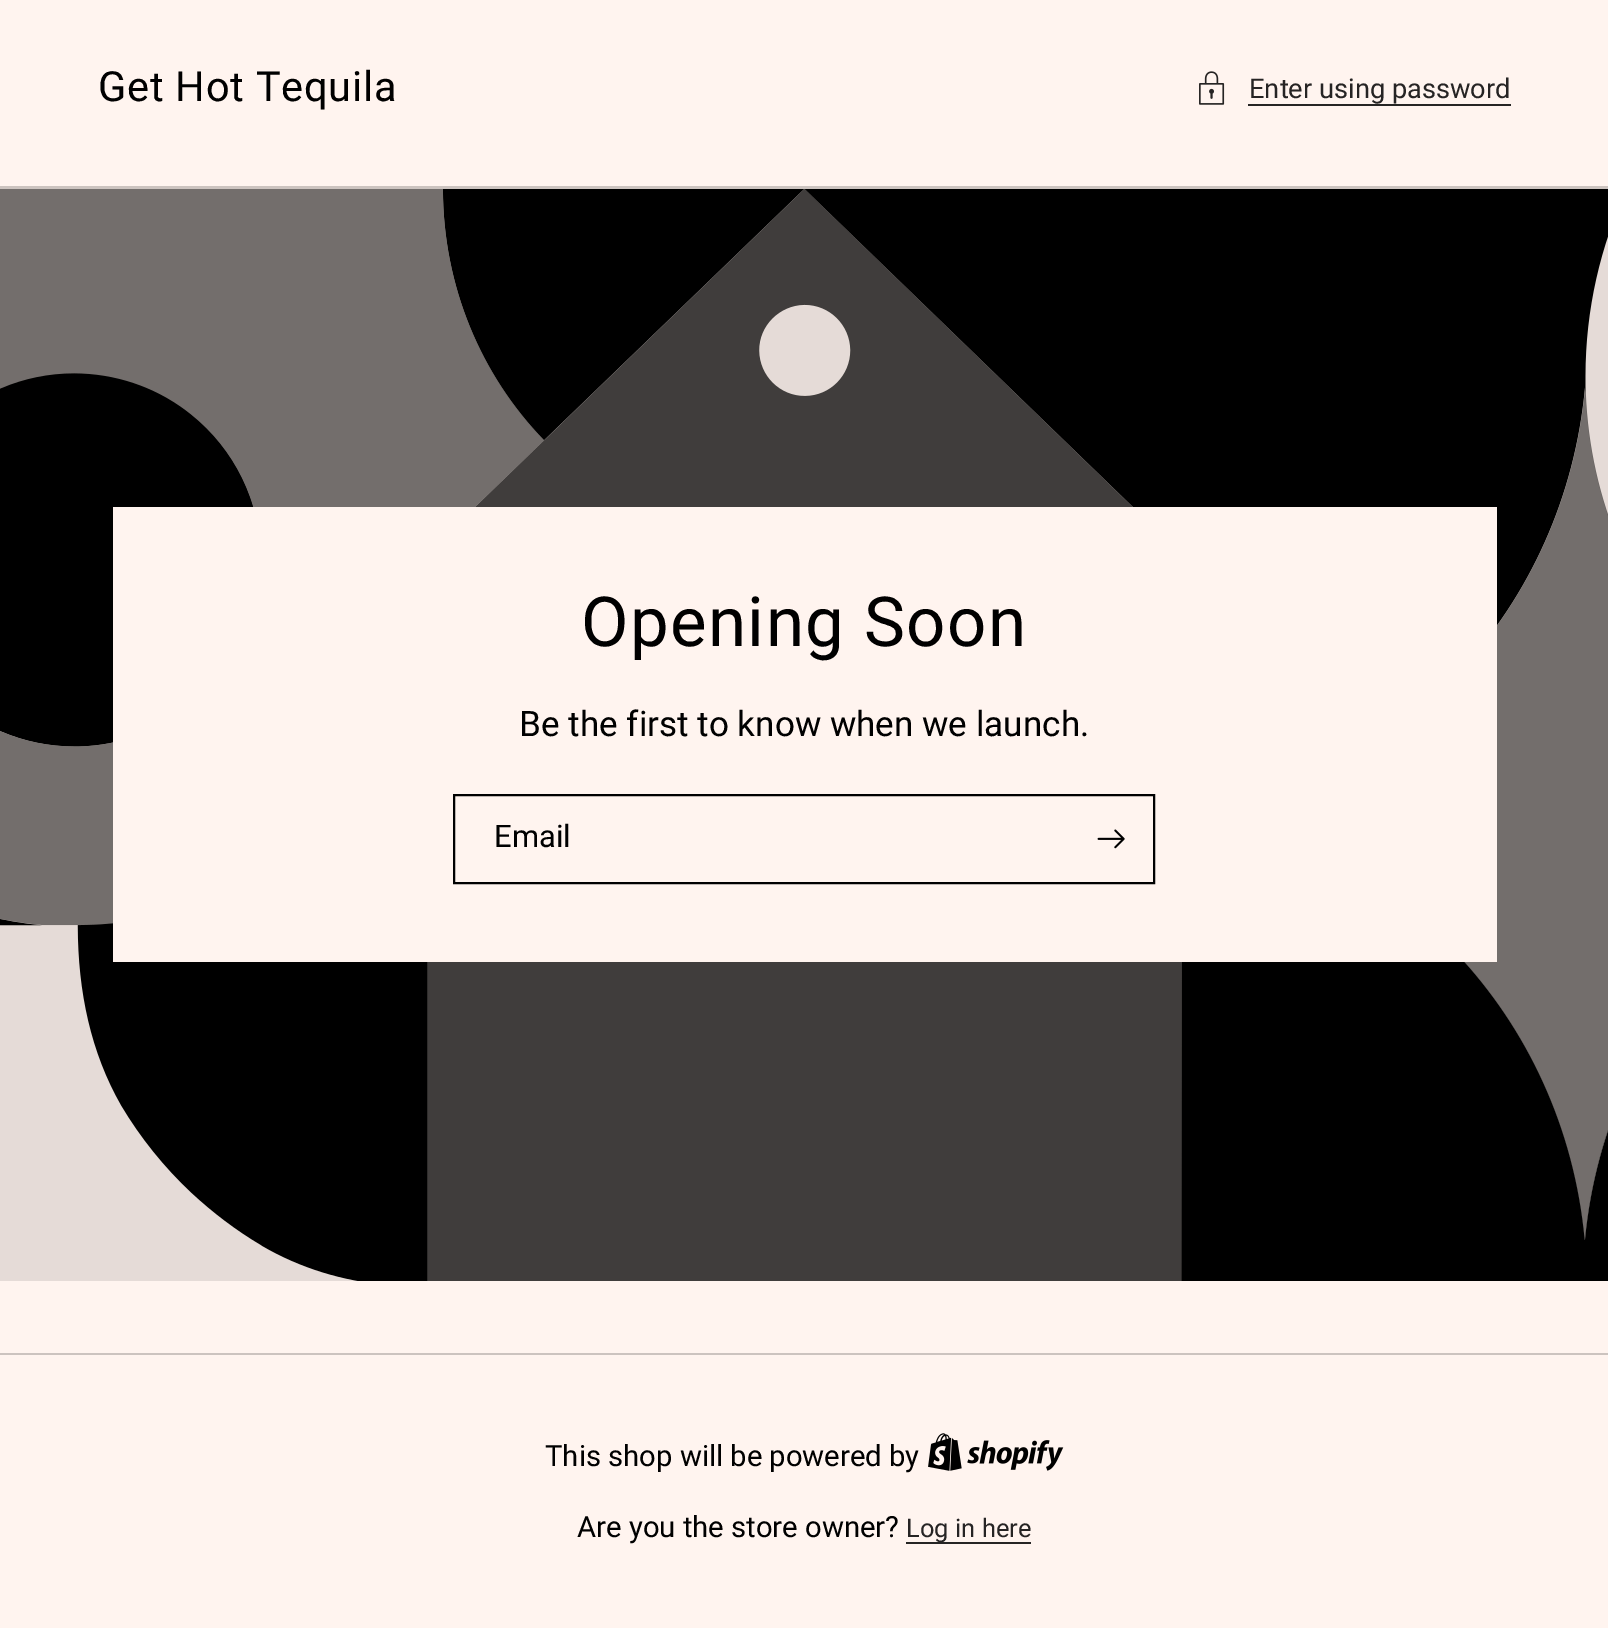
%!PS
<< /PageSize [1608 1628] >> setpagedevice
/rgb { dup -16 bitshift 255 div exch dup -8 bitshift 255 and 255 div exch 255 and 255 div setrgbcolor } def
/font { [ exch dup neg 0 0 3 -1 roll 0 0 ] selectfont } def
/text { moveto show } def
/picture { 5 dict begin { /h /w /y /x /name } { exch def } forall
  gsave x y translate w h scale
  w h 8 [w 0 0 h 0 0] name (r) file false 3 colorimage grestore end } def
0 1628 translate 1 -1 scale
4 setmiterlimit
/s1 { /Roboto-Regular 27.25 font 16#262424 rgb } def
/s2 { /Roboto-Regular 35.1 font 16#000000 rgb } def
/s3 { /Roboto-Regular 31 font 16#000000 rgb } def
/s4 { /Roboto-Regular 29.25 font 16#000000 rgb } def
/s5 { /Roboto-Regular 25.5 font 16#262424 rgb } def
16#FFF4EF rgb
0 0 1608 1628 rectfill
/Roboto-Regular 41.5 font
16#000000 rgb
98 101 moveto 0.8 0 (Get Hot Tequila) ashow
(pic1.raw) 1199 71 26 34 picture
s1
(Enter using password) 1249 98 text
16#262524 rgb
1248 104 263 2 rectfill
16#CCC3BF rgb
0 186 1608 3 rectfill
(pic2.raw) 0 189 1608 1092 picture
16#FFF4EF rgb
113 507 1384 455 rectfill
/Roboto-Regular 69 font
16#000000 rgb
581 646 moveto 1.4 0 (Opening Soon) ashow
s2
(Be the first to know when we launch.) 519 736 text
2 setlinewidth
454 795 700 88 rectstroke
s3
(Email) 494 847 text
(pic3.raw) 1097 829 28 20 picture
16#CCC3BF rgb
0 1353 1608 2 rectfill
s4
(This shop will be powered by) 545 1466 text
(pic4.raw) 928 1433 136 38 picture
(Are you the store owner?) 577 1537 text
16#262524 rgb
906 1542 125 2 rectfill
s5
(Log in here) 906 1537 text
showpage
